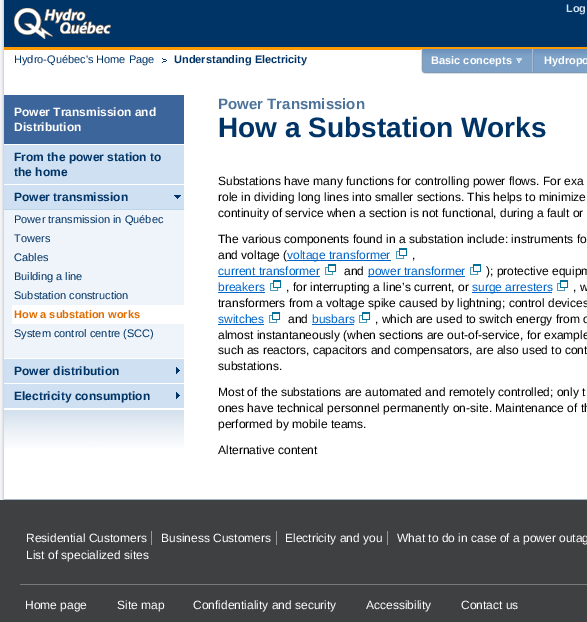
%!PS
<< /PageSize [587 622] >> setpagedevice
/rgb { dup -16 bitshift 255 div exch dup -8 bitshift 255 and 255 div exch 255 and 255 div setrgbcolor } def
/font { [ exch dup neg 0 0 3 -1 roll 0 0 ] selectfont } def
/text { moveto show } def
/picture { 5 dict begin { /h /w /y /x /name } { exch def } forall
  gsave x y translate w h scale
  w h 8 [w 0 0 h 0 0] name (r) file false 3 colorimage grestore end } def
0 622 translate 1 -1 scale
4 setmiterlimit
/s1 { /LiberationSans-Bold 11 font 16#CFE1F1 rgb } def
/s2 { /LiberationSans-Regular 11 font 16#003366 rgb } def
/s3 { /LiberationSans-Bold 11 font 16#003366 rgb } def
/s4 { /LiberationSans-Bold 12 font 16#FFFFFF rgb } def
/s5 { /LiberationSans-Bold 12 font 16#003366 rgb } def
/s6 { /LiberationSans-Bold 11 font 16#E16C00 rgb } def
/s7 { /LiberationSans-Bold 15 font 16#4C7399 rgb } def
/s8 { /LiberationSans-Bold 28 font 16#003366 rgb } def
/s9 { /LiberationSans-Regular 12 font 16#000000 rgb } def
/s10 { /LiberationSans-Regular 12 font 16#0066CC rgb } def
/s11 { /LiberationSans-Bold 11 font 16#FFFFFF rgb } def
/s12 { /LiberationSans-Regular 12 font 16#FFFFFF rgb } def
16#FFFFFF rgb
0 0 587 622 rectfill
(pic1.raw) 0 0 4 500 picture
16#A5B7CA rgb
4 499 583 1 rectfill
16#003366 rgb
4 0 583 47 rectfill
16#FD9A00 rgb
4 47 583 3 rectfill
(pic2.raw) 14 8 97 31 picture
s1
(Log) 566 12 text
s2
(Hydro-Québec's Home Page) 14 63 text
(pic3.raw) 162 58 5 5 picture
s3
(Understanding Electricity) 174 63 text
16#3B659B rgb
4 95 180 49 rectfill
s4
(Power Transmission and) 14 116 text
(Distribution) 14 131 text
16#CEE0F1 rgb
4 145 180 263 rectfill
s5
(From the power station to) 14 161 text
(the home) 14 176 text
(pic4.raw) 174 195 7 4 picture
16#FFFFFF rgb
4 184 180 1 rectfill
s5
(Power transmission) 14 201 text
16#EEF4FA rgb
4 210 180 148 rectfill
16#BCD6E8 rgb
4 209 180 1 rectfill
s2
(Power transmission in Québec) 14 223 text
(Towers) 14 242 text
(Cables) 14 261 text
(Building a line) 14 280 text
(Substation construction) 14 299 text
16#FFFFFF rgb
12 305 172 19 rectfill
s6
(How a substation works) 14 318 text
s2
(System control centre \(SCC\)) 14 337 text
(pic5.raw) 176 367 4 7 picture
16#FFFFFF rgb
4 358 180 1 rectfill
s5
(Power distribution) 14 375 text
(pic5.raw) 176 392 4 7 picture
16#FFFFFF rgb
4 383 180 1 rectfill
s5
(Electricity consumption) 14 400 text
(pic6.raw) 4 410 180 38 picture
s7
(Power Transmission) 218 109 text
s8
(How a Substation Works) 218 137 text
s9
(Substations have many functions for controlling power flows. For exa) 218 185 text
(role in dividing long lines into smaller sections. This helps to minimize) 218 201 text
(continuity of service when a section is not functional, during a fault or) 218 217 text
(The various components found in a substation include: instruments fo) 218 243 text
(and voltage \() 218 259 text
16#0066CC rgb
287 260 104 1 rectfill
(voltage transformer) 287 259 text
(pic7.raw) 396 248 12 11 picture
s9
(,) 412 259 text
s10
(current transformer) 218 275 text
218 276 102 1 rectfill
(pic7.raw) 325 264 12 11 picture
s9
(and) 344 275 text
16#0066CC rgb
368 276 97 1 rectfill
(power transformer) 368 275 text
(pic7.raw) 470 264 12 11 picture
s9
(\); protective equipm) 486 275 text
s10
(breakers) 218 291 text
218 292 47 1 rectfill
(pic7.raw) 270 280 12 11 picture
s9
(, for interrupting a line’s current, or) 286 291 text
16#0066CC rgb
472 292 80 1 rectfill
(surge arresters) 472 291 text
(pic7.raw) 557 280 12 11 picture
s9
(, w) 573 291 text
(transformers from a voltage spike caused by lightning; control devices) 218 307 text
s10
(switches) 218 323 text
218 324 46 1 rectfill
(pic7.raw) 269 312 12 11 picture
s9
(and) 288 323 text
s10
(busbars) 312 323 text
312 324 42 1 rectfill
(pic7.raw) 359 312 12 11 picture
s9
(, which are used to switch energy from o) 375 323 text
(almost instantaneously \(when sections are out-of-service, for example) 218 339 text
(such as reactors, capacitors and compensators, are also used to cont) 218 354 text
(substations.) 218 370 text
(Most of the substations are automated and remotely controlled; only t) 218 396 text
(ones have technical personnel permanently on-site. Maintenance of th) 218 412 text
(performed by mobile teams.) 218 428 text
(Alternative content) 218 454 text
(pic8.raw) 421 49 112 25 picture
(pic9.raw) 516 58 6 5 picture
16#A5BDD7 rgb
532 49 1 23 rectfill
s11
(Basic concepts) 431 64 text
(pic10.raw) 533 49 54 25 picture
16#7298BE rgb
533 49 1 23 rectfill
s11
(Hydropo) 544 64 text
16#3F4042 rgb
0 500 587 122 rectfill
s12
(Residential Customers) 26 542 text
16#999999 rgb
151 531 1 14 rectfill
s12
(Business Customers) 161 542 text
16#999999 rgb
276 531 1 14 rectfill
s12
(Electricity and you) 285 542 text
16#999999 rgb
387 531 1 14 rectfill
s12
(What to do in case of a power outag) 397 542 text
(List of specialized sites) 26 559 text
16#78797A rgb
20 584 567 1 rectfill
s12
(Home page) 25 609 text
(Site map) 117 609 text
(Confidentiality and security) 193 609 text
(Accessibility) 366 609 text
(Contact us) 461 609 text
showpage
